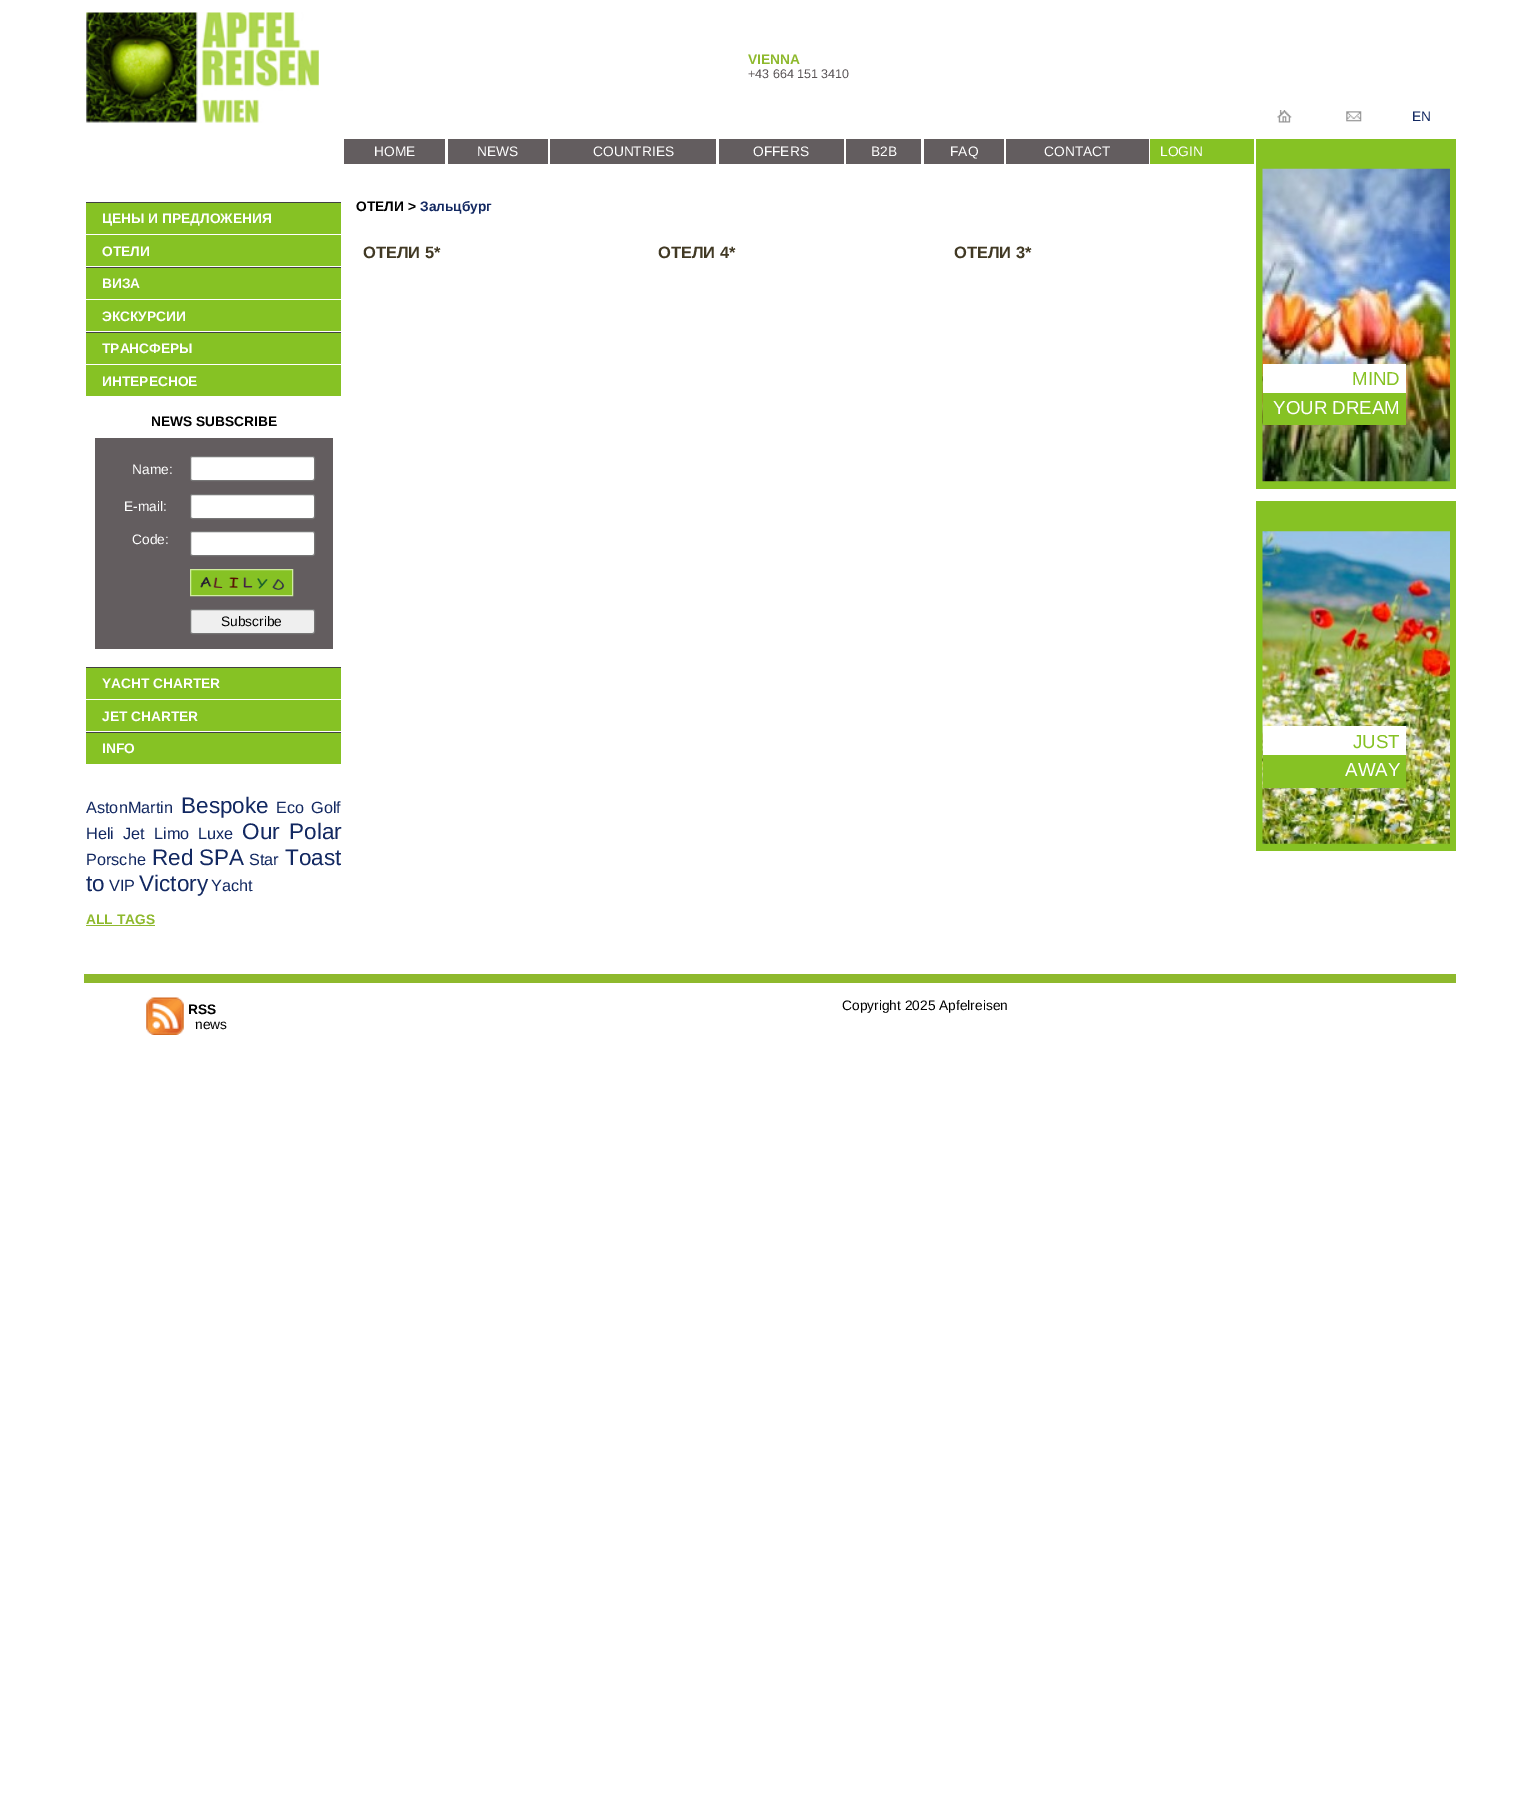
%!PS
<< /PageSize [1540 1806] >> setpagedevice
/rgb { dup -16 bitshift 255 div exch dup -8 bitshift 255 and 255 div exch 255 and 255 div setrgbcolor } def
/font { [ exch dup neg 0 0 3 -1 roll 0 0 ] selectfont } def
/text { moveto show } def
/roundrect { 5 dict begin { /r /h /w /y /x } { exch def } forall
  x r add y moveto x w add y 2 copy h add r arct x w add y h add x 1 index r arct
  x y h add x y r arct x y 2 copy exch w add exch r arct closepath end } def
/picture { 5 dict begin { /h /w /y /x /name } { exch def } forall
  gsave x y translate w h scale
  w h 8 [w 0 0 h 0 0] name (r) file false 3 colorimage grestore end } def
0 1806 translate 1 -1 scale
4 setmiterlimit
/s1 { /LiberationSans-Bold 13.75 font 16#8EB92D rgb } def
/s2 { /LiberationSans-Regular 12.5 font 16#5A5456 rgb } def
/s3 { /LiberationSans-Regular 13.75 font 16#122861 rgb } def
/s4 { /LiberationSans-Bold 13.75 font 16#FFFFFF rgb } def
/s5 { /LiberationSans-Bold 13.75 font 16#000000 rgb } def
/s6 { /LiberationSans-Regular 13.75 font 16#FFFFFF rgb } def
/s7 { /LiberationSans-Regular 13.75 font 16#000000 rgb } def
/s8 { /LiberationSans-Regular 16.25 font 16#122861 rgb } def
/s9 { /LiberationSans-Regular 22.5 font 16#122861 rgb } def
/s10 { /LiberationSans-Bold 13.75 font 16#122861 rgb } def
/s11 { /LiberationSans-Bold 16.5 font 16#413924 rgb } def
/s12 { /LiberationSans-Regular 18.75 font 16#86C224 rgb } def
/s13 { /LiberationSans-Regular 18.75 font 16#FFFFFF rgb } def
16#FFFFFF rgb
0 0 1540 1806 rectfill
(pic1.raw) 86 12 233 111 picture
s1
(VIENNA) 748 64 text
s2
(+43 664 151 3410) 748 78 text
(pic2.raw) 1277 110 15 13 picture
(pic3.raw) 1346 111 16 11 picture
s3
(EN) 1412 121 text
16#414141 rgb
86 202 255 131 rectfill
16#86C224 rgb
86 203 255 31 rectfill
s4
(ЦЕНЫ И ПРЕДЛОЖЕНИЯ) 102 223 text
86 234 255 1 rectfill
16#86C224 rgb
86 235 255 31 rectfill
s4
(ОТЕЛИ) 102 256 text
86 266 255 1 rectfill
16#86C224 rgb
86 268 255 31 rectfill
s4
(ВИЗА) 102 288 text
86 299 255 1 rectfill
16#86C224 rgb
86 300 255 31 rectfill
s4
(ЭКСКУРСИИ) 102 321 text
86 331 255 1 rectfill
16#86C224 rgb
86 333 255 31 rectfill
s4
(ТРАНСФЕРЫ) 102 353 text
16#86C224 rgb
86 365 255 31 rectfill
s4
(ИНТЕРЕСНОЕ) 102 386 text
s5
(NEWS SUBSCRIBE) 151 426 text
16#635D5F rgb
95 438 238 211 rectfill
s6
(Name:) 132 474 text
190.5 456.5 124 24 2 roundrect gsave fill grestore
16#767676 rgb
stroke
s6
(E-mail:) 124 511 text
190.5 494.5 124 24 2 roundrect gsave fill grestore
16#767676 rgb
stroke
s6
(Code:) 132 544 text
190.5 531.5 124 24 2 roundrect gsave fill grestore
16#767676 rgb
stroke
16#86C224 rgb
190.5 569.5 moveto 292.5 569.5 lineto 292.5 595.5 lineto 190.5 595.5 lineto closepath gsave fill grestore
16#CFEC9F rgb
stroke
(pic4.raw) 200 577 85 13 picture
16#EFEFEF rgb
190.5 609.5 124 24 2 roundrect gsave fill grestore
16#767676 rgb
stroke
s7
(Subscribe) 221 626 text
16#414141 rgb
86 667 255 66 rectfill
16#86C224 rgb
86 668 255 31 rectfill
s4
(YACHT CHARTER) 102 688 text
86 699 255 1 rectfill
16#86C224 rgb
86 700 255 31 rectfill
s4
(JET CHARTER) 102 721 text
86 731 255 1 rectfill
16#86C224 rgb
86 733 255 31 rectfill
s4
(INFO) 102 753 text
s8
(AstonMartin) 86 813 text
s9
(Bespoke) 181 813 text
s8
(Eco) 276 813 text
(Golf) 311 813 text
(Heli) 86 839 text
(Jet) 123 839 text
(Limo) 154 839 text
(Luxe) 198 839 text
s9
(Our) 242 839 text
(Polar) 289 839 text
s8
(Porsche) 86 865 text
s9
(Red) 152 865 text
(SPA) 199 865 text
s8
(Star) 249 865 text
s9
(Toast) 285 865 text
(to) 86 891 text
s8
(VIP) 109 891 text
s9
(Victory) 139 891 text
s8
(Yacht) 211 891 text
s1
(ALL TAGS) 86 924 text
86 925 69 1 rectfill
16#635D5F rgb
344 139 101 25 rectfill
s6
(HOME) 374 156 text
16#635D5F rgb
448 139 100 25 rectfill
s6
(NEWS) 477 156 text
16#635D5F rgb
550 139 166 25 rectfill
s6
(COUNTRIES) 593 156 text
16#635D5F rgb
719 139 125 25 rectfill
s6
(OFFERS) 753 156 text
16#635D5F rgb
846 139 75 25 rectfill
s6
(B2B) 871 156 text
16#635D5F rgb
924 139 80 25 rectfill
s6
(FAQ) 950 156 text
16#635D5F rgb
1006 139 143 25 rectfill
s6
(CONTACT) 1044 156 text
16#86C224 rgb
1150 139 104 25 rectfill
s6
(LOGIN) 1160 156 text
s5
(ОТЕЛИ >) 356 211 text
s10
(Зальцбург) 420 211 text
s11
(ОТЕЛИ 5*) 363 258 text
(ОТЕЛИ 4*) 658 258 text
(ОТЕЛИ 3*) 954 258 text
16#86C224 rgb
1256 139 200 350 rectfill
(pic5.raw) 1262 168 188 314 picture
16#FFFFFF rgb
1263 364 143 29 rectfill
s12
(MIND) 1352 385 text
1263 393 143 32 rectfill
s13
(YOUR DREAM) 1273 414 text
16#86C224 rgb
1256 501 200 350 rectfill
(pic6.raw) 1262 531 188 313 picture
16#FFFFFF rgb
1263 726 143 29 rectfill
s12
(JUST) 1353 748 text
1263 755 143 33 rectfill
s13
(AWAY) 1345 776 text
16#8EB92D rgb
84 974 1372 9 rectfill
(pic7.raw) 146 997 38 38 picture
s5
(RSS) 188 1014 text
s7
(news) 195 1029 text
(Copyright 2025 Apfelreisen) 842 1010 text
showpage
